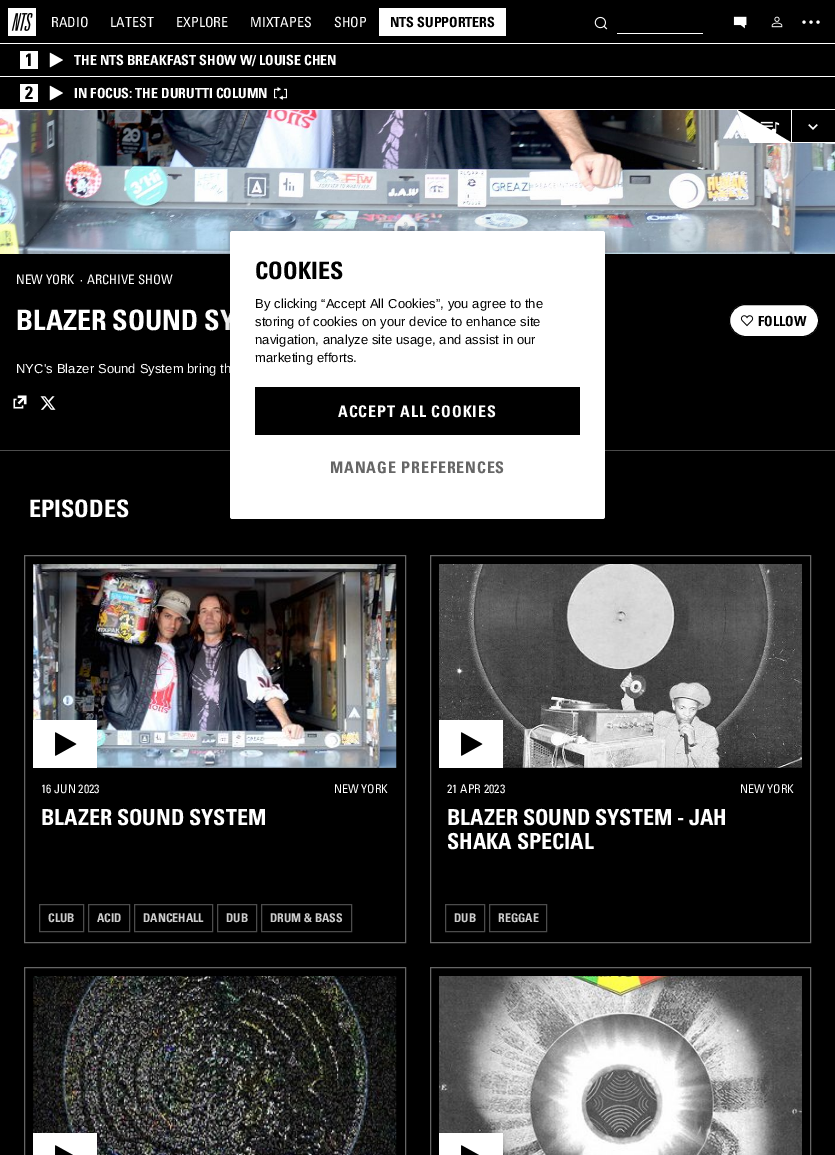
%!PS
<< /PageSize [835 1155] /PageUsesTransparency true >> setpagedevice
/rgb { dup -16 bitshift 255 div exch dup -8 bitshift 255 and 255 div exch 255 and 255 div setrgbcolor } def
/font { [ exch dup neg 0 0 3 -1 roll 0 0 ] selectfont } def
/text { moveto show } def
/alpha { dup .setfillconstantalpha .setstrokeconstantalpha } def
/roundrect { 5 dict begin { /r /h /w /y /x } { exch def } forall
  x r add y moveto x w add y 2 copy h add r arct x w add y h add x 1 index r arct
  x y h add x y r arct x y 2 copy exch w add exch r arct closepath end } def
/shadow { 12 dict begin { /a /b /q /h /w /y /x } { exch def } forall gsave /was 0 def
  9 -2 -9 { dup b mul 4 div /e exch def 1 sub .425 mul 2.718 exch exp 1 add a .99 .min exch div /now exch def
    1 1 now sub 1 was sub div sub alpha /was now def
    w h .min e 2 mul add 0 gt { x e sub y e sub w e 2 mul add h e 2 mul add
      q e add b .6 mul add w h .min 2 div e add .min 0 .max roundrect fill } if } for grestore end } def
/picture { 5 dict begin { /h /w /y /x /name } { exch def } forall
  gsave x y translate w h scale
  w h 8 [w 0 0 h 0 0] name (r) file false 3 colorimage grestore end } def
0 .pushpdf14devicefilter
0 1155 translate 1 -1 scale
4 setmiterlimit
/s1 { /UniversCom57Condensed-Regular 14 font 16#FFFFFF rgb } def
/s2 { /Univers-Bold 14 font 16#000000 rgb } def
/s3 { /Univers-Bold 18 font 16#000000 rgb } def
/s4 { /Univers-Bold 14 font 16#FFFFFF rgb } def
/s5 { /UniversCom57Condensed-Regular 13 font 16#FFFFFF rgb } def
/s6 { /Univers-Bold 28 font 16#FFFFFF rgb } def
/s7 { /Univers-Bold 24 font 16#FFFFFF rgb } def
/s8 { /UniversCom57Condensed-Regular 12 font 16#FFFFFF rgb } def
/s9 { /Univers-Bold 22 font 16#FFFFFF rgb } def
/s10 { /Univers-Bold 12 font 16#CCCCCC rgb } def
/s11 { /Univers-Bold 24 font 16#000000 rgb } def
16#000000 rgb
0 0 835 1155 rectfill
16#FFFFFF rgb
0 43 835 1 rectfill
(pic1.raw) 8 8 28 28 picture
s1
(RADIO) 51 27 text
(LATEST) 110 27 text
(EXPLORE) 176 27 text
(MIXTAPES) 250 27 text
(SHOP) 334 27 text
379 8 127 28 rectfill
s2
(NTS SUPPORTERS) 390 27 text
(pic2.raw) 594 16 14 14 picture
16#FFFFFF rgb
617 33 86 1 rectfill
(pic3.raw) 733 16 14 13 picture
(pic4.raw) 771 16 12 12 picture
(pic5.raw) 802 20 18 4 picture
0 109 835 1 rectfill
0 76 835 1 rectfill
20 51 18 18 rectfill
s3
(1) 25 66 text
(pic6.raw) 49 52 14 16 picture
s4
(THE NTS BREAKFAST SHOW W/ LOUISE CHEN) 74 65 text
20 84 18 18 rectfill
s3
(2) 25 99 text
(pic6.raw) 49 85 14 16 picture
s4
(IN FOCUS: THE DURUTTI COLUMN) 74 98 text
(pic7.raw) 274 87 13 13 picture
(pic10.raw) 0 110 835 144 picture
737 110 moveto 750 143 lineto 791 143 lineto 791 110 lineto closepath fill
16#000000 rgb
738 110 moveto 791 110 lineto 791 142 lineto closepath fill
(pic8.raw) 760 121 20 12 picture
792 110 43 32 rectfill
16#FFFFFF rgb
791 142 44 1 rectfill
791 110 1 33 rectfill
(pic9.raw) 808 124 10 6 picture
s5
(NEW YORK) 16 284 text
(·) 80 284 text
(ARCHIVE SHOW) 87 284 text
s6
(BLAZER SOUND SY) 16 330 text
729.5 304.5 89 32 16 roundrect gsave fill grestore
16#000000 rgb
stroke
(pic11.raw) 740 315 14 12 picture
s2
(FOLLOW) 758 326 text
/LiberationSans-Regular 13 font
16#FFFFFF rgb
16 373 moveto 0.1 0 (NYC's Blazer Sound System bring th) ashow
(pic12.raw) 13 395 14 14 picture
(pic13.raw) 40 396 16 14 picture
16#4D4D4D rgb
0 450 835 1 rectfill
s7
(EPISODES) 29 517 text
16#666666 rgb
24.5 555.5 381 387 rectstroke
(pic14.raw) 33 564 364 204 picture
gsave
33 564 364 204 rectclip
16#000000 rgb
33 721 64 48 0 10 0.05 shadow
grestore
16#FFFFFF rgb
33 720 64 48 rectfill
(pic15.raw) 55 732 22 24 picture
s8
(16 JUN 2023) 41 793 text
(NEW YORK) 334 793 text
s9
(BLAZER SOUND SYSTEM) 41 825 text
16#4C4C4C rgb
39.5 904.5 44 27 rectstroke
s10
(CLUB) 48 922 text
16#4C4C4C rgb
88.5 904.5 41 27 rectstroke
s10
(ACID) 97 922 text
16#4C4C4C rgb
134.5 904.5 78 27 rectstroke
s10
(DANCEHALL) 143 922 text
16#4C4C4C rgb
217.5 904.5 39 27 rectstroke
s10
(DUB) 226 922 text
16#4C4C4C rgb
261.5 904.5 90 27 rectstroke
s10
(DRUM & BASS) 270 922 text
16#666666 rgb
430.5 555.5 380 387 rectstroke
(pic16.raw) 439 564 363 204 picture
16#FFFFFF rgb
439 720 64 48 rectfill
(pic15.raw) 461 732 22 24 picture
s8
(21 APR 2023) 447 793 text
(NEW YORK) 740 793 text
s9
(BLAZER SOUND SYSTEM - JAH) 447 825 text
(SHAKA SPECIAL) 447 849 text
16#4C4C4C rgb
445.5 904.5 39 27 rectstroke
s10
(DUB) 454 922 text
16#4C4C4C rgb
489.5 904.5 57 27 rectstroke
s10
(REGGAE) 498 922 text
16#666666 rgb
24.5 967.5 381 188 rectstroke
(pic17.raw) 33 976 364 179 picture
16#FFFFFF rgb
33 1133 64 22 rectfill
(pic18.raw) 55 1145 18 10 picture
16#666666 rgb
430.5 967.5 380 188 rectstroke
(pic19.raw) 439 976 363 179 picture
16#FFFFFF rgb
439 1133 64 22 rectfill
(pic18.raw) 461 1145 18 10 picture
16#000000 rgb
230 231 375 288 2.5 9 0.2 shadow
16#FFFFFF rgb
230 231 375 288 2.5 roundrect fill
s11
(COOKIES) 255 279 text
/LiberationSans-Regular 13 font
255 308 moveto 0.1 0 (By clicking “Accept All Cookies”, you agree to the) ashow
255 326 moveto 0.1 0 (storing of cookies on your device to enhance site) ashow
255 344 moveto 0.1 0 (navigation, analyze site usage, and assist in our) ashow
255 362 moveto 0.1 0 (marketing efforts.) ashow
255 387 325 48 rectfill
/Univers-Bold 16 font
16#FFFFFF rgb
338 417 moveto 0.9 0 (ACCEPT ALL COOKIES) ashow
16#666666 rgb
330 473 moveto 0.9 0 (MANAGE PREFERENCES) ashow
.poppdf14devicefilter showpage
